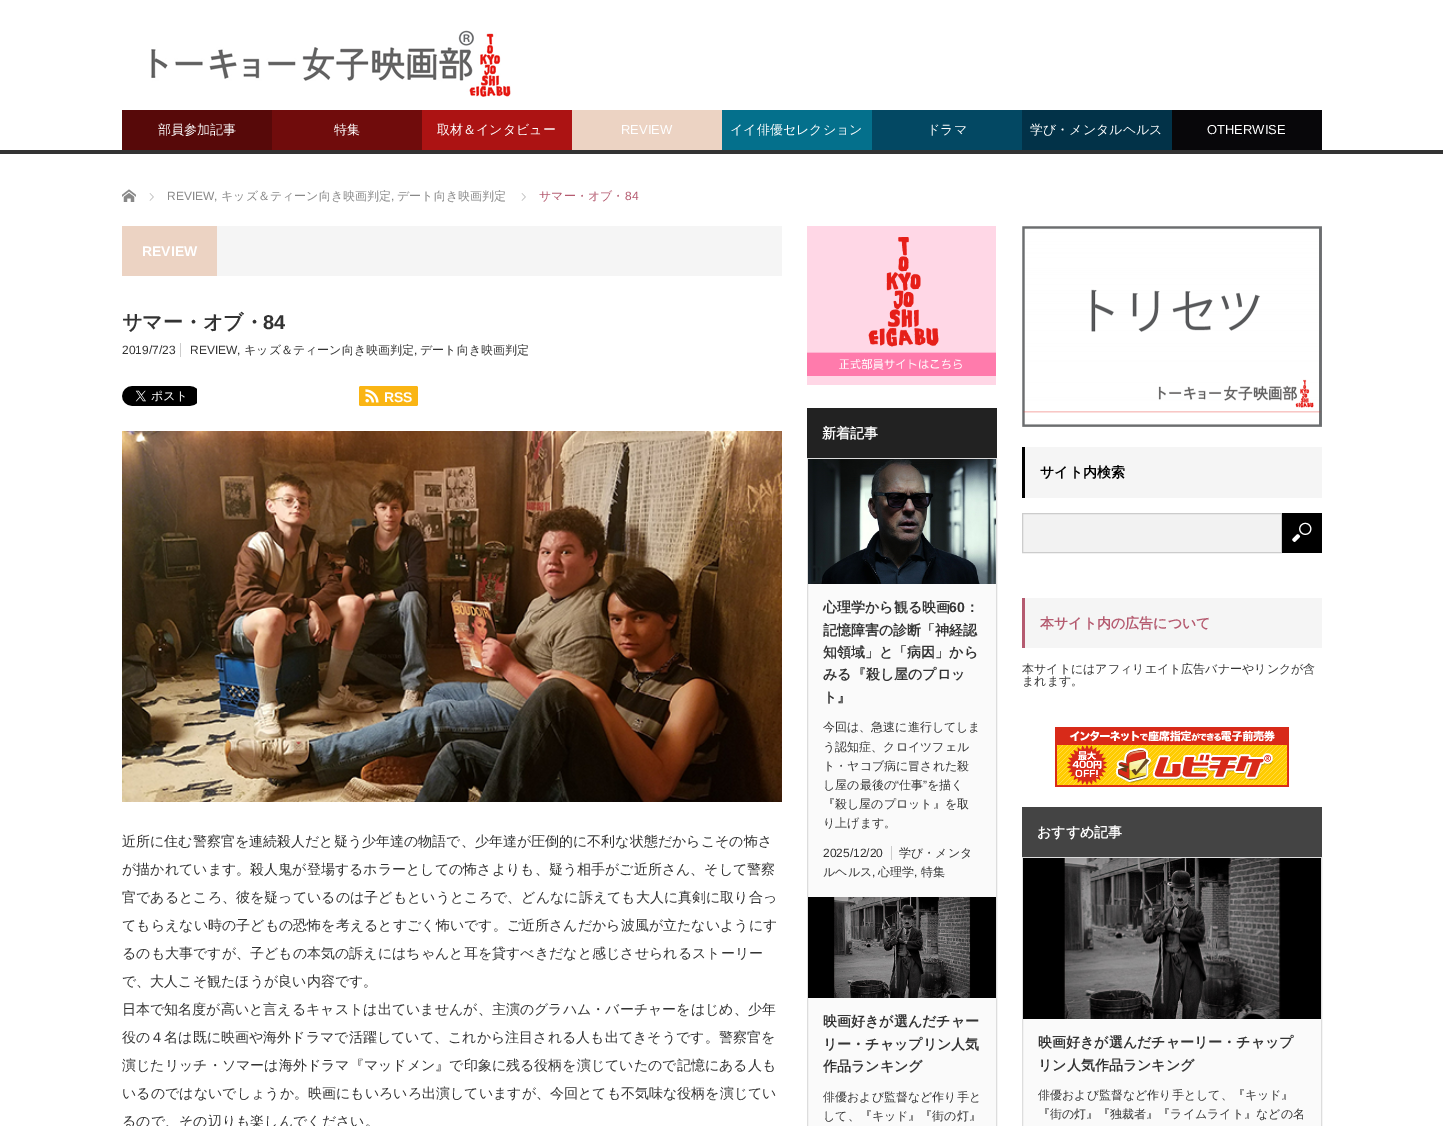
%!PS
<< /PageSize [1443 1126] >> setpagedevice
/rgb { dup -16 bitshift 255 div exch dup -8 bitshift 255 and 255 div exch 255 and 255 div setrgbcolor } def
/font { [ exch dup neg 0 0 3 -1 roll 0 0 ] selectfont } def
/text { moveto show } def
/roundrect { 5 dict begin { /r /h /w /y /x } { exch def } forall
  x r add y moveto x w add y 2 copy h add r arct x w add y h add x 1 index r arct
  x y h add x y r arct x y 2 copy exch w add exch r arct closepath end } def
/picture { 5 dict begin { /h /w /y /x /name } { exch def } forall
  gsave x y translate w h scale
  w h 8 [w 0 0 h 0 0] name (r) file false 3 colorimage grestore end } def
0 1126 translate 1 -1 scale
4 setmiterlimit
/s1 { /WenQuanYiZenHei-Medium 13 font 16#FFFFFF rgb } def
/s2 { /LiberationSans-Regular 13 font 16#FFFFFF rgb } def
/s3 { /LiberationSans-Regular 12 font 16#888888 rgb } def
/s4 { /WenQuanYiZenHei-Medium 12 font 16#888888 rgb } def
/s5 { /WenQuanYiZenHei-Medium 12 font 16#B55B70 rgb } def
/s6 { /LiberationSans-Regular 12 font 16#B55B70 rgb } def
/s7 { /LiberationSans-Bold 14 font 16#FFFFFF rgb } def
/s8 { /WenQuanYiZenHei-Bold 20 font 16#333333 rgb } def
/s9 { /LiberationSans-Bold 20 font 16#333333 rgb } def
/s10 { /LiberationSans-Regular 12 font 16#333333 rgb } def
/s11 { /WenQuanYiZenHei-Medium 12 font 16#333333 rgb } def
/s12 { /WenQuanYiZenHei-Medium 14 font 16#333333 rgb } def
/s13 { /WenQuanYiZenHei-Bold 14 font 16#FFFFFF rgb } def
/s14 { /WenQuanYiZenHei-Bold 14 font 16#333333 rgb } def
/s15 { /LiberationSans-Bold 14 font 16#333333 rgb } def
/s16 { /WenQuanYiZenHei-Bold 14 font 16#000000 rgb } def
/s17 { /WenQuanYiZenHei-Bold 14 font 16#B55B70 rgb } def
16#FFFFFF rgb
0 0 1443 1126 rectfill
16#333333 rgb
0 150 1443 4 rectfill
(pic1.raw) 151 30 360 67 picture
16#570909 rgb
122 110 150 40 rectfill
s1
(部員参加記事) 158 134 text
16#700C0C rgb
272 110 150 40 rectfill
s1
(特集) 334 134 text
16#AC1313 rgb
422 110 150 40 rectfill
s1
(取材＆インタビュー) 437 134 text
16#ECD3C3 rgb
572 110 150 40 rectfill
s2
(REVIEW) 621 134 text
16#04708C rgb
722 110 150 40 rectfill
s1
(イイ俳優セレクション) 730 134 text
16#034863 rgb
872 110 150 40 rectfill
s1
(ドラマ) 927 134 text
16#023248 rgb
1022 110 150 40 rectfill
s1
(学び・メンタルヘルス) 1030 134 text
16#08070A rgb
1172 110 150 40 rectfill
s2
(OTHERWISE) 1207 134 text
(pic2.raw) 122 189 14 13 picture
(pic3.raw) 149 193 5 8 picture
s3
(REVIEW,) 167 200 text
s4
(キッズ＆ティーン向き映画判定) 221 200 text
s3
(,) 391 200 text
s4
(デート向き映画判定) 397 200 text
(pic3.raw) 521 193 5 8 picture
s5
(サマー・オブ・) 539 200 text
s6
(84) 625 200 text
16#F5F5F5 rgb
217 226 565 50 rectfill
16#ECD3C3 rgb
122 226 95 50 rectfill
s7
(REVIEW) 142 256 text
s8
(サマー・オブ・) 122 329 text
s9
(84) 263 329 text
s10
(2019/7/23) 122 354 text
16#CCCCCC rgb
180 343 1 14 rectfill
s10
(REVIEW,) 190 354 text
s11
(キッズ＆ティーン向き映画判定) 244 354 text
s10
(,) 414 354 text
s11
(デート向き映画判定) 420 354 text
(pic4.raw) 122 386 75 20 picture
16#FAB514 rgb
359 386 59 20 2 roundrect fill
(pic5.raw) 365 389 14 14 picture
s7
(RSS) 384 402 text
(pic6.raw) 122 431 660 371 picture
s12
(近所に住む警察官を連続殺人だと疑う少年達の物語で、少年達が圧倒的に不利な状態だからこその怖さ) 122 846 text
(が描かれています。殺人鬼が登場するホラーとしての怖さよりも、疑う相手がご近所さん、そして警察) 122 874 text
(官であるところ、彼を疑っているのは子どもというところで、どんなに訴えても大人に真剣に取り合っ) 122 902 text
(てもらえない時の子どもの恐怖を考えるとすごく怖いです。ご近所さんだから波風が立たないようにす) 122 930 text
(るのも大事ですが、子どもの本気の訴えにはちゃんと耳を貸すべきだなと感じさせられるストーリー) 122 958 text
(で、大人こそ観たほうが良い内容です。) 122 986 text
(日本で知名度が高いと言えるキャストは出ていませんが、主演のグラハム・バーチャーをはじめ、少年) 122 1014 text
(役の４名は既に映画や海外ドラマで活躍していて、これから注目される人も出てきそうです。警察官を) 122 1042 text
(演じたリッチ・ソマーは海外ドラマ『マッドメン』で印象に残る役柄を演じていたので記憶にある人も) 122 1070 text
(いるのではないでしょうか。映画にもいろいろ出演していますが、今回とても不気味な役柄を演じてい) 122 1098 text
(るので、その辺りも楽しんでください。) 122 1126 text
(pic7.raw) 807 226 189 159 picture
16#FAFAFA rgb
808 584 188 542 rectfill
16#222222 rgb
807 408 190 50 rectfill
s13
(新着記事) 822 438 text
16#DDDDDD rgb
807.5 458.5 189 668 rectstroke
(pic8.raw) 808 459 188 125 picture
s14
(心理学から観る映画) 823 612 text
s15
(60) 949 612 text
s14
(：) 965 612 text
(記憶障害の診断「神経認) 823 635 text
(知領域」と「病因」から) 823 657 text
(みる『殺し屋のプロッ) 823 679 text
(ト』) 823 702 text
s11
(今回は、急速に進行してしま) 823 731 text
(う認知症、クロイツフェル) 823 751 text
(ト・ヤコブ病に冒された殺) 823 770 text
(し屋の最後の) 823 789 text
s10
(“) 895 789 text
s11
(仕事) 899 789 text
s10
(”) 923 789 text
s11
(を描く) 927 789 text
(『殺し屋のプロット』を取) 823 808 text
(り上げます。) 823 827 text
s10
(2025/12/20) 823 857 text
s11
(学び・メンタ) 899 857 text
16#CCCCCC rgb
891 846 1 14 rectfill
s11
(ルヘルス) 823 876 text
s10
(,) 872 876 text
s11
(心理学) 878 876 text
s10
(,) 914 876 text
s11
(特集) 921 876 text
(pic9.raw) 808 897 188 101 picture
s14
(映画好きが選んだチャー) 823 1026 text
(リー・チャップリン人気) 823 1049 text
(作品ランキング) 823 1071 text
s11
(俳優および監督など作り手と) 823 1101 text
(して、『キッド』『街の灯』) 823 1120 text
(pic10.raw) 1022 226 300 201 picture
16#F5F5F5 rgb
1025 447 297 51 rectfill
16#000000 rgb
1022 447 3 51 rectfill
s16
(サイト内検索) 1040 477 text
16#F2F2F2 rgb
1022.5 513.5 moveto 1281.5 513.5 lineto 1281.5 552.5 lineto 1022.5 552.5 lineto closepath gsave fill grestore
16#CCCCCC rgb
stroke
16#000000 rgb
1282 513 40 40 rectfill
(pic11.raw) 1292 522 20 20 picture
16#F5F5F5 rgb
1025 598 297 50 rectfill
16#B55B70 rgb
1022 598 3 50 rectfill
(本サイト内の広告について) 1040 628 text
s11
(本サイトにはアフィリエイト広告バナーやリンクが含) 1022 673 text
(まれます。) 1022 685 text
(pic12.raw) 1055 727 234 60 picture
16#444444 rgb
1022 807 300 50 rectfill
s13
(おすすめ記事) 1037 837 text
16#FAFAFA rgb
1023 1019 298 107 rectfill
16#DDDDDD rgb
1022.5 857.5 299 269 rectstroke
(pic13.raw) 1023 858 298 161 picture
s14
(映画好きが選んだチャーリー・チャップ) 1038 1047 text
(リン人気作品ランキング) 1038 1070 text
s11
(俳優および監督など作り手として、『キッド』) 1038 1099 text
(『街の灯』『独裁者』『ライムライト』などの名) 1038 1118 text
showpage
